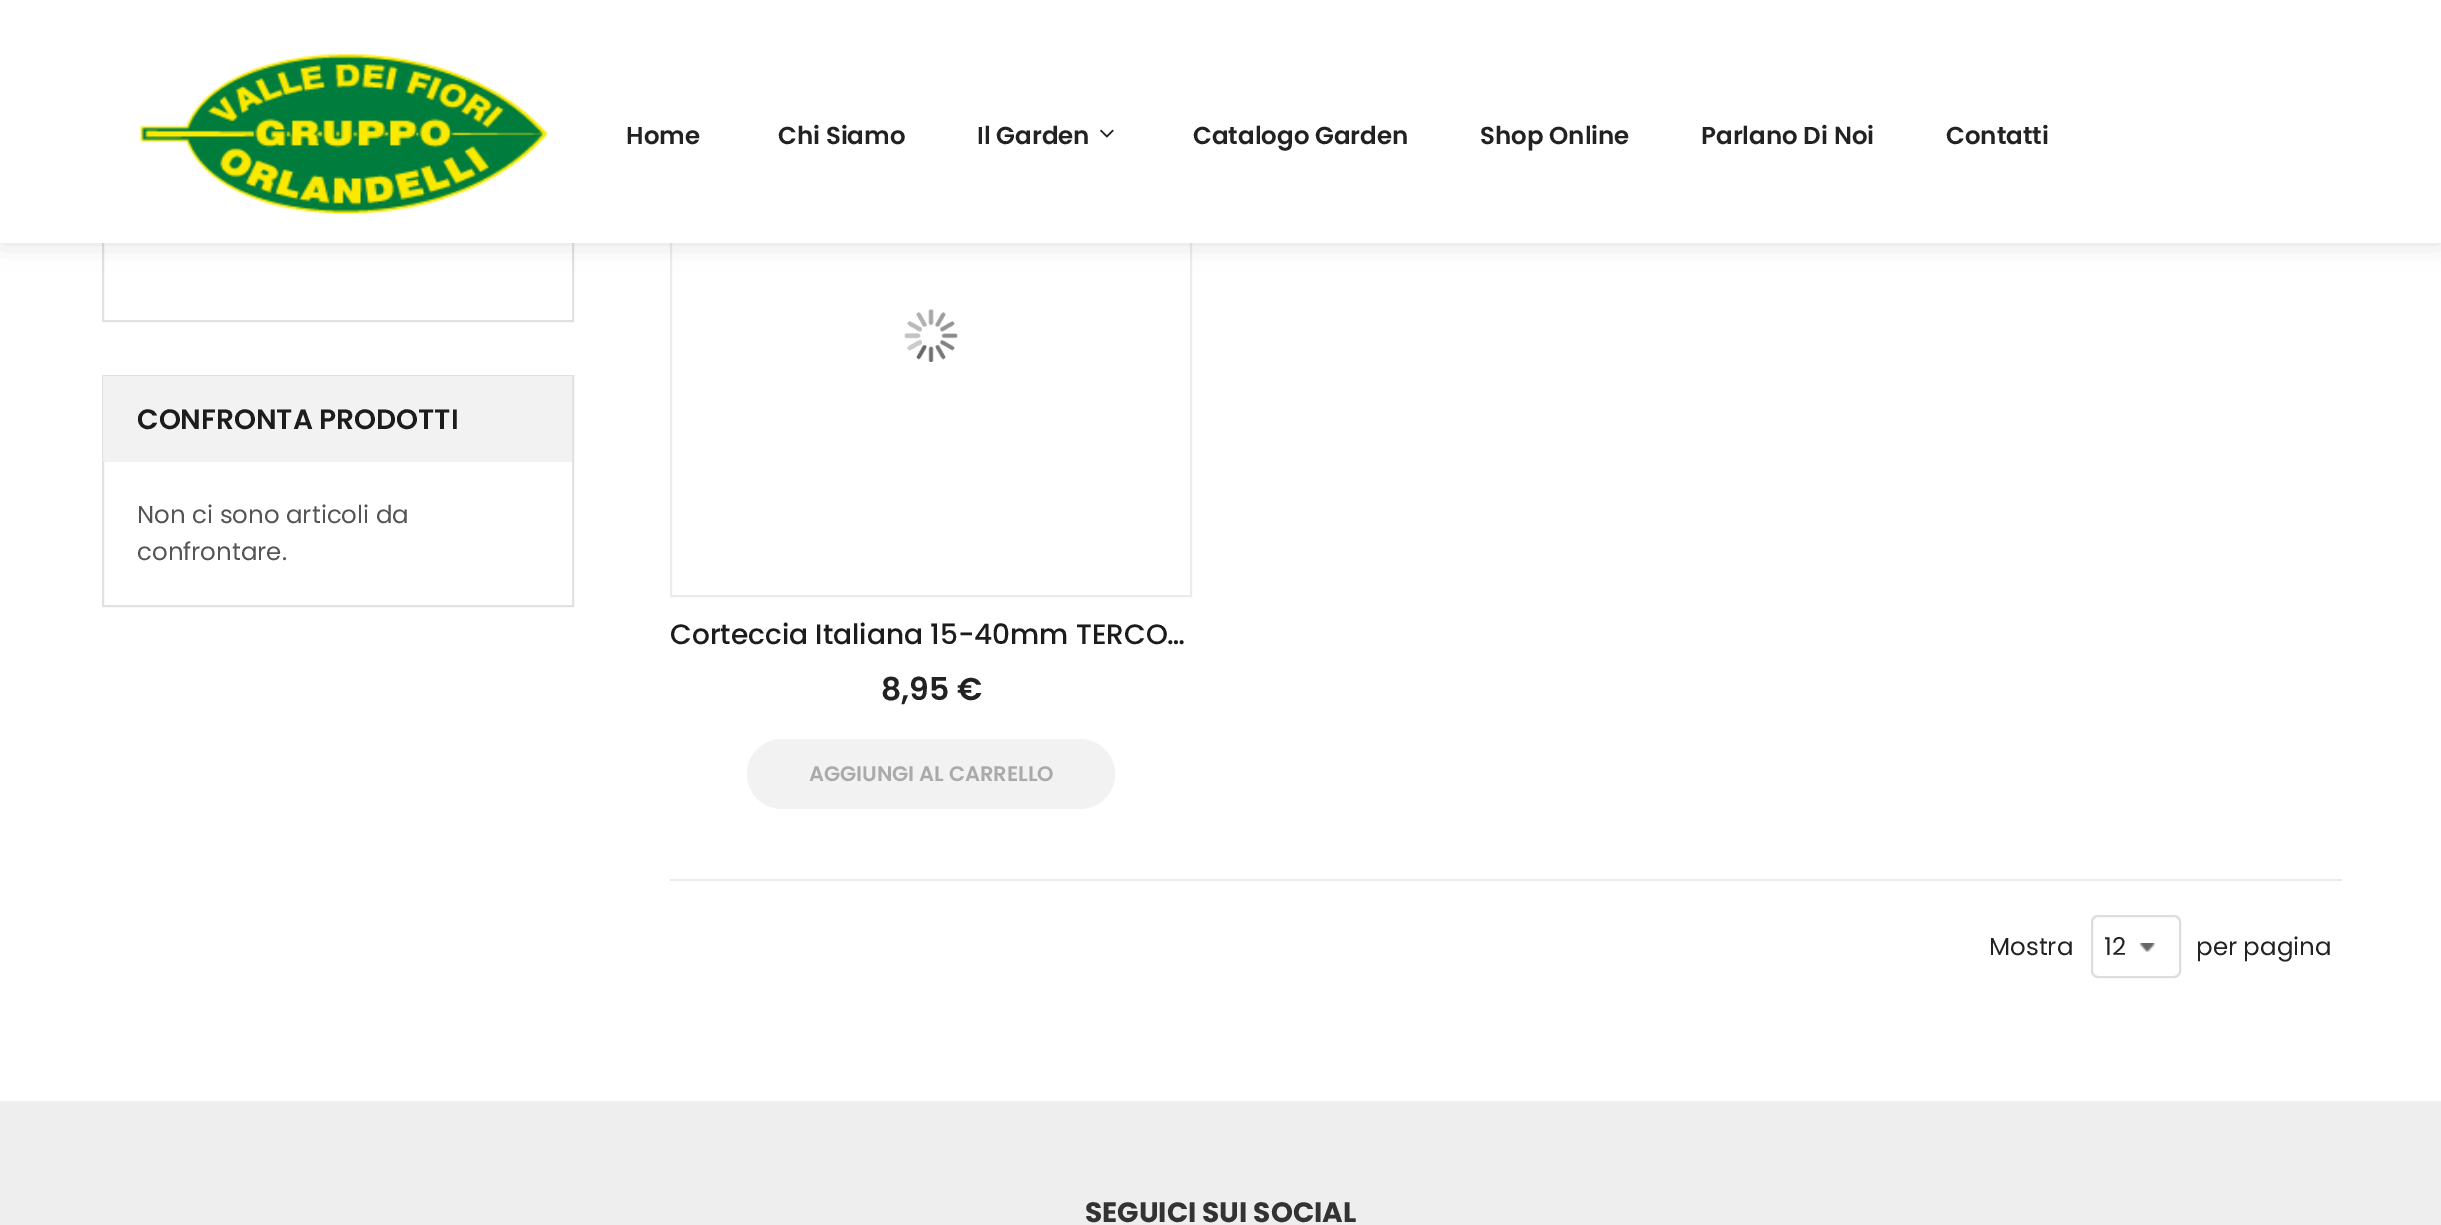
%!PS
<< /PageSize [2441 1225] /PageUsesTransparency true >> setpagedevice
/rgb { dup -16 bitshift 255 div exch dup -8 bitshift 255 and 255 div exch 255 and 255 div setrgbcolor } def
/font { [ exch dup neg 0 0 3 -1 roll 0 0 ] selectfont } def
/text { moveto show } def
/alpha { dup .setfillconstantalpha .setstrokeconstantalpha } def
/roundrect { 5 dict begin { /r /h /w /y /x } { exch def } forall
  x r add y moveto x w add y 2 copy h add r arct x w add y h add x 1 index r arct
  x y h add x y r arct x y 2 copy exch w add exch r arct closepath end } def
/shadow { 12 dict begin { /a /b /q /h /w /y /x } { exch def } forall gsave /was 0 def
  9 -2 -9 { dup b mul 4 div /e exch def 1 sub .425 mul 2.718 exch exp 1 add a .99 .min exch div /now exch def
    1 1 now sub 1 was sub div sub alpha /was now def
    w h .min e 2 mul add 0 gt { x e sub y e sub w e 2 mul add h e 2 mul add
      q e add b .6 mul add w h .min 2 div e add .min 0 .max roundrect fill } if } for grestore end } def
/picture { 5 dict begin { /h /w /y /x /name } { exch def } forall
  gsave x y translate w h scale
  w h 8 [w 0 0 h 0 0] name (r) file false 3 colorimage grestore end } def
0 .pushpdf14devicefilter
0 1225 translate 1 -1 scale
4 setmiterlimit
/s1 { /Poppins-SemiBold 24.5 font 16#222222 rgb } def
/s2 { /Poppins-SemiBold 28 font 16#1C1C1C rgb } def
/s3 { /Poppins-Regular 24.5 font 16#545454 rgb } def
/s4 { /Poppins-Medium 28 font 16#1C1C1C rgb } def
/s5 { /Poppins-SemiBold 31.5 font 16#222222 rgb } def
/s6 { /Poppins-SemiBold 21 font 16#AAAAAA rgb } def
/s7 { /Poppins-Regular 24.5 font 16#222222 rgb } def
/s8 { /Poppins-Bold 28 font 16#333333 rgb } def
16#FFFFFF rgb
0 0 2441 1225 rectfill
16#E1E1E1 rgb
2 setlinewidth
103 -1 470 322 rectstroke
16#EBEBEB rgb
671 76 520 520 rectstroke
16#000000 rgb
0 0 2441 243 0 13 0.13 shadow
16#FFFFFF rgb
0 0 2441 243 rectfill
(pic1.raw) 139 53 410 161 picture
s1
(Home) 626 144 text
(Chi Siamo) 778 144 text
(Il Garden) 977 144 text
(pic2.raw) 1100 129 14 9 picture
(Catalogo Garden) 1193 144 text
(Shop Online) 1480 144 text
(Parlano Di Noi) 1701 144 text
(Contatti) 1946 144 text
16#E1E1E1 rgb
103 376 470 230 rectstroke
16#F2F2F2 rgb
103 376 469 86 rectfill
s2
(CONFRONTA PRODOTTI) 137 429 text
s3
(Non ci sono articoli da) 137 523 text
(confrontare.) 137 560 text
(pic3.raw) 904 309 54 53 picture
s4
(Corteccia Italiana 15-40mm TERCO…) 670 644 text
s5
(8,95 €) 881 700 text
16#F2F2F2 rgb
747 739 368 70 35 roundrect fill
s6
(AGGIUNGI AL CARRELLO) 809 781 text
16#EBEBEB rgb
670 879 1672 2 rectfill
s7
(Mostra) 1989 955 text
(pic4.raw) 2139 943 16 9 picture
16#DDDDDD rgb
2092 916 88 61 6 roundrect stroke
s7
(12) 2104 955 text
(per pagina) 2196 955 text
16#EEEEEE rgb
0 1101 2441 124 rectfill
s8
(SEGUICI SUI SOCIAL) 1085 1222 text
.poppdf14devicefilter showpage
